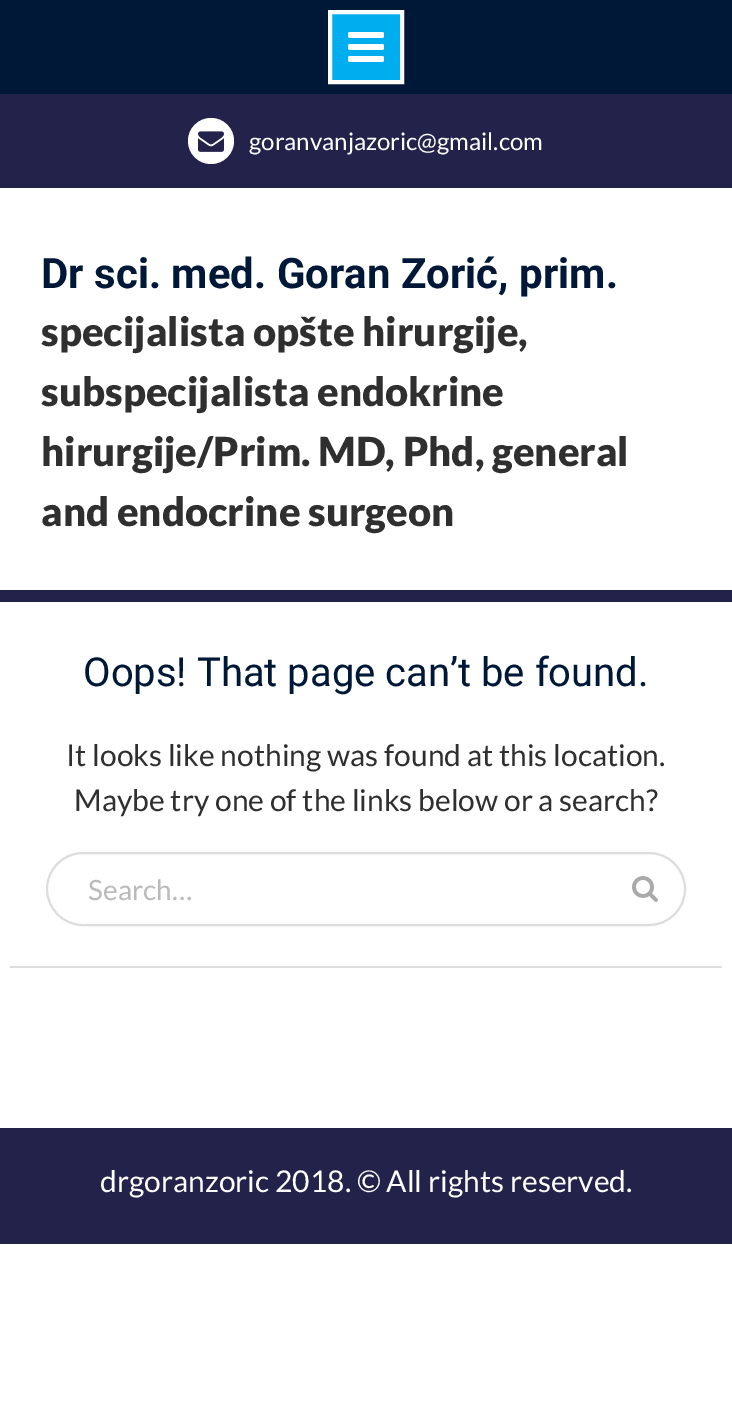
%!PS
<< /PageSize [732 1426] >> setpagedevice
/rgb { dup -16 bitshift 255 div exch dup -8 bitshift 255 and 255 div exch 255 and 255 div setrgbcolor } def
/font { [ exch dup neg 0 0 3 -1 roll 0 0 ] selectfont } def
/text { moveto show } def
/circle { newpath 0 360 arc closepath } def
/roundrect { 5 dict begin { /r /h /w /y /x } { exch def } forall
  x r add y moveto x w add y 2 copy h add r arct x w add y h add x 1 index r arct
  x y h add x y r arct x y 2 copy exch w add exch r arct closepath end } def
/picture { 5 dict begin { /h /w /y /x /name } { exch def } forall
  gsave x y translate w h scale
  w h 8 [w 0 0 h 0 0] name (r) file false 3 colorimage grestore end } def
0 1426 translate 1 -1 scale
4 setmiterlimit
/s1 { /Lato-Regular 24 font 16#FFFFFF rgb } def
/s2 { /Roboto-Bold 42 font 16#001837 rgb } def
/s3 { /Lato-Black 40 font 16#2F2F2F rgb } def
/s4 { /Roboto-Regular 40 font 16#001837 rgb } def
/s5 { /Lato-Regular 30 font 16#2F2F2F rgb } def
/s6 { /Lato-Regular 28 font 16#BABABA rgb } def
/s7 { /Lato-Regular 30 font 16#FFFFFF rgb } def
16#FFFFFF rgb
0 0 732 1426 rectfill
16#001837 rgb
0 0 732 94 rectfill
16#00AEEF rgb
330 12 moveto 402 12 lineto 402 82 lineto 330 82 lineto closepath gsave fill grestore
16#FFFFFE rgb
4 setlinewidth
stroke
(pic1.raw) 348 32 36 30 picture
16#23224A rgb
0 94 732 94 rectfill
16#FFFFFF rgb
211 141 23 circle fill
(pic2.raw) 198 131 26 21 picture
s1
(goranvanjazoric@gmail.com) 249 150 text
16#23224A rgb
0 590 732 12 rectfill
s2
(Dr sci. med. Goran Zorić, prim.) 41 288 text
s3
(specijalista opšte hirurgije,) 41 346 text
(subspecijalista endokrine) 41 406 text
(hirurgije/Prim. MD, Phd, general) 41 466 text
(and endocrine surgeon) 41 526 text
16#DDDDDD rgb
10 966 712 2 rectfill
s4
(Oops! That page can’t be found.) 83 686 text
s5
(It looks like nothing was found at this location.) 66 766 text
(Maybe try one of the links below or a search?) 74 811 text
16#DDDDDD rgb
2 setlinewidth
47 853 638 72 36 roundrect stroke
s6
(Search…) 88 900 text
(pic3.raw) 632 876 26 26 picture
16#23224A rgb
0 1128 732 116 rectfill
s7
(drgoranzoric 2018. © All rights reserved.) 100 1192 text
showpage
